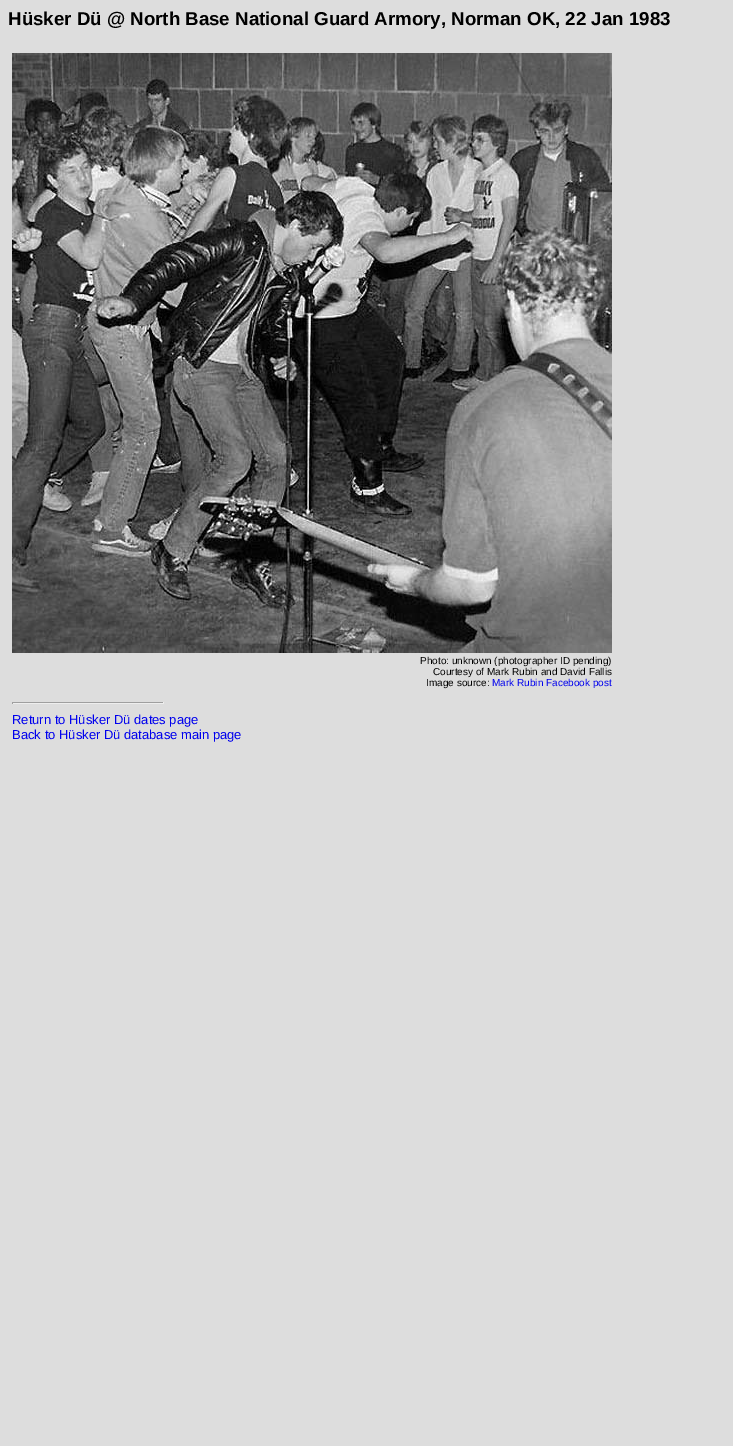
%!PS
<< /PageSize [733 1446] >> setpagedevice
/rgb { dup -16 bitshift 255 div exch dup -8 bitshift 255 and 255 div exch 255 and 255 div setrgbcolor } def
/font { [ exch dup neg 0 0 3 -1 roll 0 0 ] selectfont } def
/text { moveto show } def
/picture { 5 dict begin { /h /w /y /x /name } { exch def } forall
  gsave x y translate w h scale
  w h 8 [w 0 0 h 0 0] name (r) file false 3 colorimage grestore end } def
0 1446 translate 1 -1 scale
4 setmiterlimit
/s1 { /LiberationSans-Bold 18.7 font 16#000000 rgb } def
/s2 { /LiberationSans-Regular 10 font 16#000000 rgb } def
/s3 { /LiberationSans-Regular 10 font 16#0000EE rgb } def
/s4 { /LiberationSans-Regular 13 font 16#0000EE rgb } def
16#DDDDDD rgb
0 0 733 1446 rectfill
s1
(Hüsker Dü @ North Base National Guard Armory, Norman OK, 22 Jan 1983) 8 25 text
(pic1.raw) 12 53 600 600 picture
s2
(Photo: unknown \(photographer ID pending\)) 420 664 text
(Courtesy of Mark Rubin and David Fallis) 433 675 text
(Image source:) 426 686 text
s3
(Mark Rubin Facebook post) 492 686 text
16#9F9F9F rgb
12 702 152 1 rectfill
16#EEEEEE rgb
163 702 1 2 rectfill
12 703 152 1 rectfill
16#9F9F9F rgb
12 702 1 2 rectfill
s4
(Return to Hüsker Dü dates page) 12 724 text
(Back to Hüsker Dü database main page) 12 739 text
showpage
